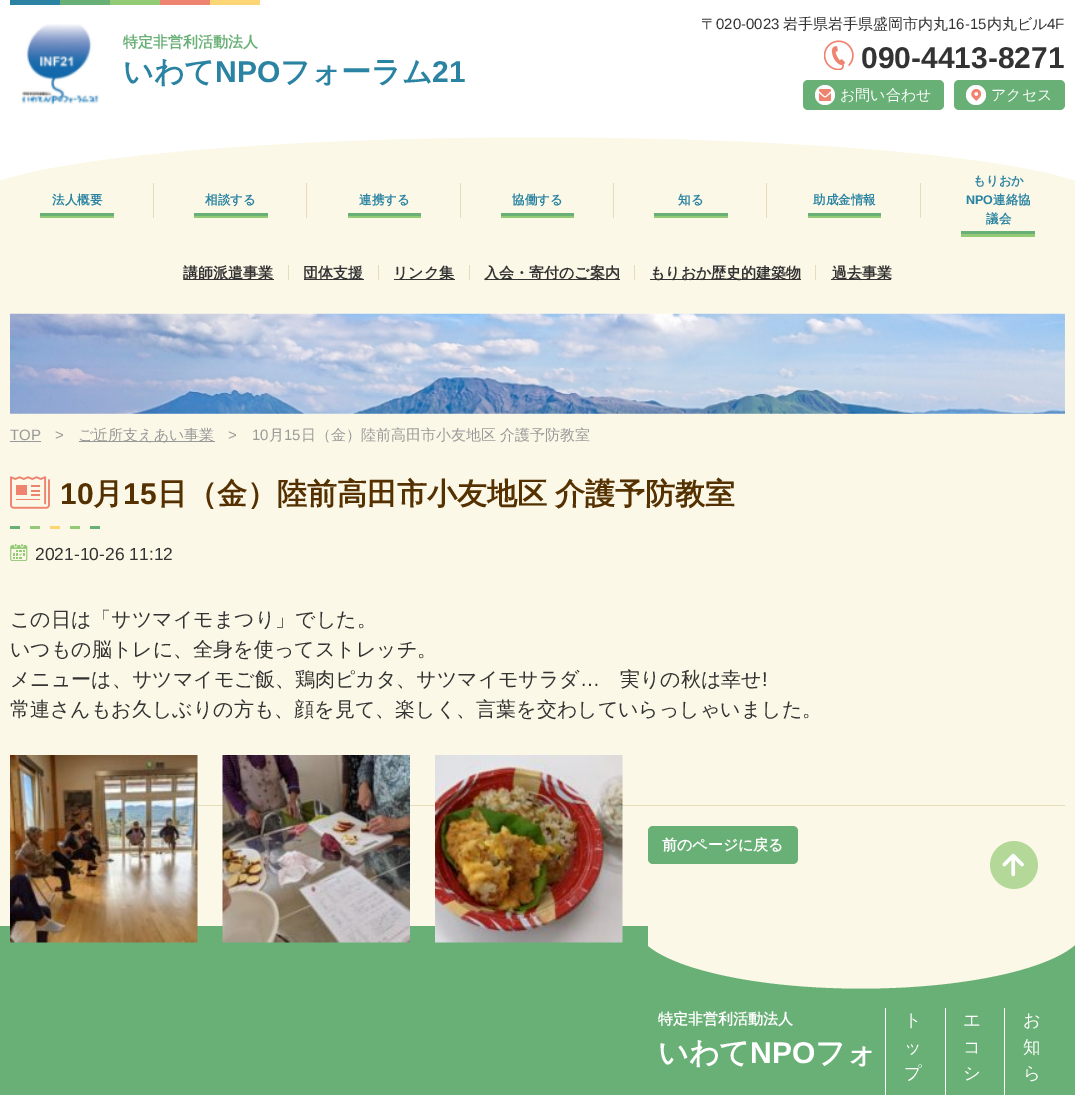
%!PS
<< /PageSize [1075 1095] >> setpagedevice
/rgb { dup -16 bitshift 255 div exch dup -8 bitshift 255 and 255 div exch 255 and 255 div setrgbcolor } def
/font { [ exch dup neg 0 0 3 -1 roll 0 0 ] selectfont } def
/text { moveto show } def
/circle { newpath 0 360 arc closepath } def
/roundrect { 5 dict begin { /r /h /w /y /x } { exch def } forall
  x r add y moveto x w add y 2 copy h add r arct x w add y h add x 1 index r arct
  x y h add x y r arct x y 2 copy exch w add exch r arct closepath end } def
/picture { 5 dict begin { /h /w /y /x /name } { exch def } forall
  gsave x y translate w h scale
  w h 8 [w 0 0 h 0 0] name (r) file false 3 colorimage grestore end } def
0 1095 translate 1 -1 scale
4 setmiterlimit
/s1 { /WenQuanYiZenHei-Bold 15 font 16#69B076 rgb } def
/s2 { /WenQuanYiZenHei-Bold 30 font 16#2A83A2 rgb } def
/s3 { /LiberationSans-Bold 30 font 16#2A83A2 rgb } def
/s4 { /WenQuanYiZenHei-Medium 15 font 16#333333 rgb } def
/s5 { /LiberationSans-Regular 15 font 16#333333 rgb } def
/s6 { /LiberationSans-Bold 30 font 16#333333 rgb } def
/s7 { /WenQuanYiZenHei-Medium 15 font 16#FFFFFF rgb } def
/s8 { /WenQuanYiZenHei-Bold 12.5 font 16#2A83A2 rgb } def
/s9 { /LiberationSans-Bold 12.5 font 16#2A83A2 rgb } def
/s10 { /WenQuanYiZenHei-Bold 15 font 16#333333 rgb } def
/s11 { /LiberationSans-Regular 15 font 16#999999 rgb } def
/s12 { /WenQuanYiZenHei-Medium 15 font 16#999999 rgb } def
/s13 { /LiberationSans-Bold 30 font 16#553101 rgb } def
/s14 { /WenQuanYiZenHei-Bold 30 font 16#553101 rgb } def
/s15 { /LiberationSans-Regular 17.5 font 16#333333 rgb } def
/s16 { /WenQuanYiZenHei-Medium 20 font 16#333333 rgb } def
/s17 { /LiberationSans-Regular 20 font 16#333333 rgb } def
/s18 { /WenQuanYiZenHei-Bold 15 font 16#FFFFFF rgb } def
/s19 { /WenQuanYiZenHei-Bold 30 font 16#FFFFFF rgb } def
/s20 { /LiberationSans-Bold 30 font 16#FFFFFF rgb } def
/s21 { /WenQuanYiZenHei-Medium 17.5 font 16#FFFFFF rgb } def
16#69B076 rgb
0 0 1075 1095 rectfill
16#FFFFFF rgb
0 0 1075 181 rectfill
16#2A83A2 rgb
10 0 50 5 rectfill
16#69B076 rgb
60 0 50 5 rectfill
16#93CA76 rgb
110 0 50 5 rectfill
16#EE836F rgb
160 0 50 5 rectfill
16#FCD575 rgb
210 0 50 5 rectfill
(pic1.raw) 21 24 78 81 picture
s1
(特定非営利活動法人) 123 47 text
s2
(いわて) 123 82 text
s3
(NPO) 215 82 text
s2
(フォーラム) 280 82 text
s3
(21) 432 82 text
s4
(〒) 701 29 text
s5
(020-0023) 716 29 text
s4
(岩手県岩手県盛岡市内丸) 783 29 text
s5
(16-15) 948 29 text
s4
(内丸ビル) 987 29 text
s5
(4F) 1047 29 text
(pic2.raw) 824 40 30 30 picture
s6
(090-4413-8271) 861 68 text
16#69B076 rgb
803 80 141 30 5 roundrect fill
16#FFFFFF rgb
825 95 10 circle fill
(pic3.raw) 819 89 12 12 picture
s7
(お問い合わせ) 840 100 text
16#69B076 rgb
954 80 111 30 5 roundrect fill
16#FFFFFF rgb
976 95 10 circle fill
(pic4.raw) 971 89 10 12 picture
(アクセス) 991 100 text
16#FCF8E7 rgb
0 219 1075 707 rectfill
537.5 137.5 moveto 849.5 137.5 1102 165.5 1102 200 curveto 1102 234.5 849.5 262.5 537.5 262.5 curveto 225.5 262.5 -27 234.5 -27 200 curveto -27 165.5 225.5 137.5 537.5 137.5 curveto closepath fill
s8
(法人概要) 52 204 text
16#69B076 rgb
40 213 74 3 rectfill
16#93CA76 rgb
40 216 74 2 rectfill
16#E6DCB8 rgb
153 183 1 35 rectfill
s8
(相談する) 205 204 text
16#69B076 rgb
194 213 74 3 rectfill
16#93CA76 rgb
194 216 74 2 rectfill
16#E6DCB8 rgb
306 183 1 35 rectfill
s8
(連携する) 359 204 text
16#69B076 rgb
348 213 73 3 rectfill
16#93CA76 rgb
348 216 73 2 rectfill
16#E6DCB8 rgb
460 183 1 35 rectfill
s8
(協働する) 512 204 text
16#69B076 rgb
501 213 73 3 rectfill
16#93CA76 rgb
501 216 73 2 rectfill
16#E6DCB8 rgb
613 183 1 35 rectfill
s8
(知る) 678 204 text
16#69B076 rgb
654 213 74 3 rectfill
16#93CA76 rgb
654 216 74 2 rectfill
16#E6DCB8 rgb
766 183 1 35 rectfill
s8
(助成金情報) 813 204 text
16#69B076 rgb
808 213 73 3 rectfill
16#93CA76 rgb
808 216 73 2 rectfill
16#E6DCB8 rgb
920 183 1 35 rectfill
s8
(もりおか) 973 185 text
s9
(NPO) 966 204 text
s8
(連絡協) 993 204 text
(議会) 986 223 text
16#69B076 rgb
961 231 74 3 rectfill
16#93CA76 rgb
961 234 74 3 rectfill
16#333333 rgb
184 279 90 1 rectfill
s10
(講師派遣事業) 183 278 text
16#E6DCB8 rgb
288 265 1 15 rectfill
16#333333 rgb
304 279 60 1 rectfill
(団体支援) 303 278 text
16#E6DCB8 rgb
378 265 1 15 rectfill
16#333333 rgb
394 279 61 1 rectfill
(リンク集) 393 278 text
16#E6DCB8 rgb
469 265 1 15 rectfill
16#333333 rgb
485 279 135 1 rectfill
(入会・寄付のご案内) 484 278 text
16#E6DCB8 rgb
634 265 1 15 rectfill
16#333333 rgb
650 279 151 1 rectfill
(もりおか歴史的建築物) 650 278 text
16#E6DCB8 rgb
815 265 1 15 rectfill
16#333333 rgb
831 279 60 1 rectfill
(過去事業) 832 278 text
(pic5.raw) 10 313 1055 101 picture
s11
(TOP) 10 440 text
10 441 31 1 rectfill
(>) 55 440 text
79 441 136 1 rectfill
s12
(ご近所支えあい事業) 78 440 text
s11
(>) 228 440 text
(10) 252 440 text
s12
(月) 269 440 text
s11
(15) 284 440 text
s12
(日（金）陸前高田市小友地区 介護予防教室) 301 440 text
(pic6.raw) 10 476 40 33 picture
s13
(10) 60 504 text
s14
(月) 93 504 text
s13
(15) 123 504 text
/WenQuanYiZenHei-Bold 30 font
157 504 moveto -1 0 32 (日（金）陸前高田市小友地区 介護予防教室) widthshow
16#69B076 rgb
10 526 10 3 rectfill
16#93CA76 rgb
30 526 10 3 rectfill
16#FCD575 rgb
50 526 10 3 rectfill
16#93CA76 rgb
70 526 10 3 rectfill
16#69B076 rgb
90 526 10 3 rectfill
(pic7.raw) 10 544 18 17 picture
s15
(2021-10-26 11:12) 35 560 text
s16
(この日は「サツマイモまつり」でした。) 10 626 text
(いつもの脳トレに、全身を使ってストレッチ。) 10 656 text
(メニューは、サツマイモご飯、鶏肉ピカタ、サツマイモサラダ) 10 686 text
s17
(…) 580 686 text
s16
(実りの秋は幸せ) 620 686 text
s17
(!) 762 686 text
s16
(常連さんもお久しぶりの方も、顔を見て、楽しく、言葉を交わしていらっしゃいました。) 10 716 text
16#E6DCB8 rgb
197 805 868 1 rectfill
(pic8.raw) 10 755 188 188 picture
(pic9.raw) 222 755 188 188 picture
(pic10.raw) 435 755 188 188 picture
16#69B076 rgb
648 826 150 38 5 roundrect fill
s18
(前のページに戻る) 662 850 text
(pic11.raw) 990 841 48 48 picture
gsave
648 926 427 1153 rectclip
16#FCF8E7 rgb
861 863.5 moveto 985 863.5 1085.5 891.5 1085.5 926 curveto 1085.5 960.5 985 988.5 861 988.5 curveto 737 988.5 636.5 960.5 636.5 926 curveto 636.5 891.5 737 863.5 861 863.5 curveto closepath fill
grestore
(特定非営利活動法人) 658 1024 text
s19
(いわて) 658 1063 text
s20
(NPO) 750 1063 text
s19
(フォ) 815 1063 text
885 1008 1 87 rectfill
s21
(ト) 904 1026 text
(ッ) 904 1053 text
(プ) 904 1079 text
945 1008 1 87 rectfill
(エ) 963 1026 text
(コ) 963 1053 text
(シ) 963 1079 text
1004 1008 1 87 rectfill
(お) 1023 1026 text
(知) 1023 1053 text
(ら) 1023 1079 text
showpage
